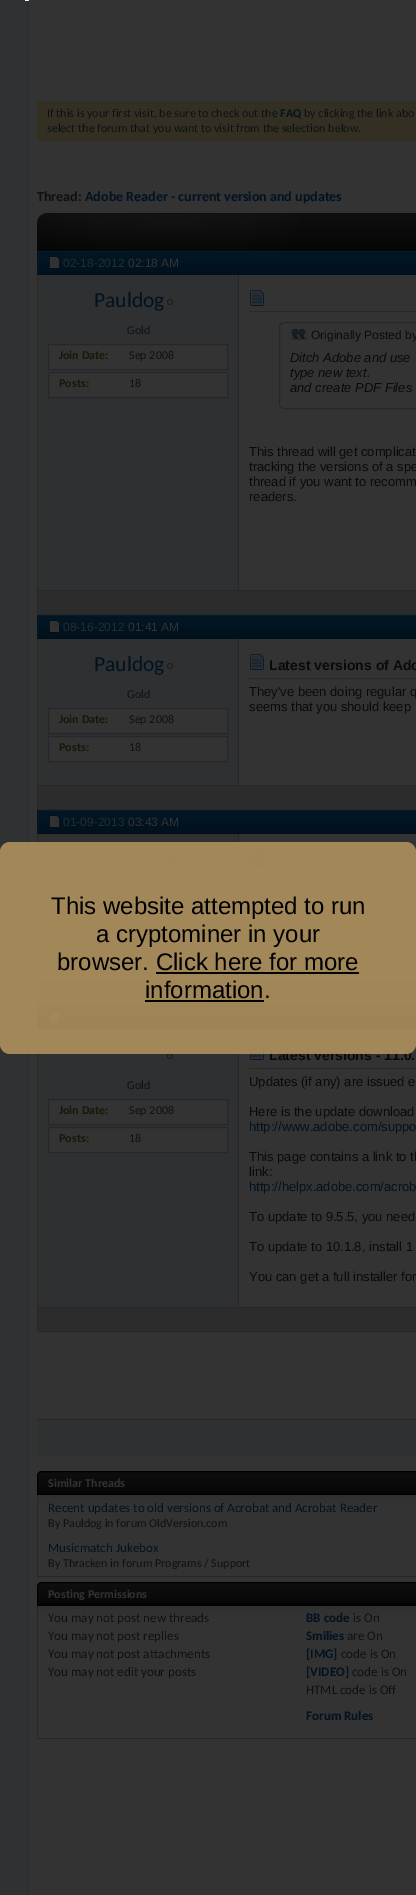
%!PS
<< /PageSize [416 1895] /PageUsesTransparency true >> setpagedevice
/rgb { dup -16 bitshift 255 div exch dup -8 bitshift 255 and 255 div exch 255 and 255 div setrgbcolor } def
/font { [ exch dup neg 0 0 3 -1 roll 0 0 ] selectfont } def
/text { moveto show } def
/alpha { dup .setfillconstantalpha .setstrokeconstantalpha } def
/roundrect { 5 dict begin { /r /h /w /y /x } { exch def } forall
  x r add y moveto x w add y 2 copy h add r arct x w add y h add x 1 index r arct
  x y h add x y r arct x y 2 copy exch w add exch r arct closepath end } def
/picture { 5 dict begin { /h /w /y /x /name } { exch def } forall
  gsave x y translate w h scale
  w h 8 [w 0 0 h 0 0] name (r) file false 3 colorimage grestore end } def
0 .pushpdf14devicefilter
0 1895 translate 1 -1 scale
4 setmiterlimit
/s1 { /Carlito-Regular 12 font 16#0F1011 rgb } def
/s2 { /Carlito-Bold 12 font 16#011220 rgb } def
/s3 { /Carlito-Bold 14 font 16#0F1011 rgb } def
/s4 { /Carlito-Bold 14 font 16#011220 rgb } def
/s5 { /LiberationSans-Regular 12 font 16#242C2E rgb } def
/s6 { /LiberationSans-Regular 12 font 16#333333 rgb } def
/s7 { /Carlito-Regular 21.5 font 16#011220 rgb } def
/s8 { /Carlito-Bold 12 font 16#121906 rgb } def
/s9 { /LiberationSans-Regular 12 font 16#0A0A0A rgb } def
/s10 { /LiberationSans-Italic 13 font 16#0A0A0A rgb } def
/s11 { /LiberationSans-Regular 13 font 16#0A0A0A rgb } def
/s12 { /LiberationSans-Bold 14 font 16#0A0A0A rgb } def
/s13 { /LiberationSans-Regular 13 font 16#011220 rgb } def
/s14 { /Carlito-Bold 12 font 16#333333 rgb } def
/s15 { /Carlito-Regular 13 font 16#011220 rgb } def
/s16 { /Carlito-Regular 13 font 16#0F1011 rgb } def
/s17 { /Carlito-Bold 13 font 16#011220 rgb } def
/s18 { /LiberationSans-Regular 24 font 16#000000 rgb } def
16#303133 rgb
0 0 416 1895 rectfill
16#333333 rgb
29 0 387 1895 rectfill
(pic1.raw) 25 0 4 1895 picture
16#333023 rgb
37 101 379 40 rectfill
s1
(If this is your first visit, be sure to check out the) 47 117 text
s2
(FAQ) 280 117 text
s1
(by clicking the link abo) 304 117 text
(select the forum that you want to visit from the selection below.) 47 132 text
s3
(Thread:) 37 201 text
s4
(Adobe Reader - current version and updates) 85 201 text
(pic2.raw) 300 213 116 38 picture
(pic3.raw) 37 213 263 38 picture
16#252729 rgb
37.5 251.5 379 363 rectstroke
16#01111E rgb
38 267 378 7 rectfill
(pic4.raw) 38 252 378 15 picture
16#061D27 rgb
37 251 379 1 rectfill
16#000E1A rgb
37 274 379 1 rectfill
16#011522 rgb
37 251 1 24 rectfill
(pic5.raw) 49 256 11 13 picture
s5
(02-18-2012) 63 267 text
s6
(02:18 AM) 128 267 text
16#2F3031 rgb
38 275 200 315 rectfill
s7
(Pauldog) 94 307 text
(pic6.raw) 167 299 6 6 picture
s1
(Gold) 127 334 text
16#333333 rgb
48.5 344.5 moveto 227.5 344.5 lineto 227.5 369.5 lineto 48.5 369.5 lineto closepath gsave fill grestore
16#252729 rgb
stroke
s8
(Join Date:) 59 359 text
s1
(Sep 2008) 129 359 text
16#333333 rgb
48.5 372.5 moveto 227.5 372.5 lineto 227.5 397.5 lineto 48.5 397.5 lineto closepath gsave fill grestore
16#252729 rgb
stroke
s8
(Posts:) 59 387 text
s1
(18) 129 387 text
16#252729 rgb
238 275 1 315 rectfill
16#282828 rgb
249 311 167 1 rectfill
(pic7.raw) 250 290 14 16 picture
16#252729 rgb
279.5 322.5 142 86 4.5 roundrect stroke
(pic8.raw) 290 329 18 11 picture
s9
(Originally Posted by) 311 339 text
s10
(Ditch Adobe and use) 290 362 text
(type new text.) 290 377 text
(and create PDF Files) 290 392 text
s11
(This thread will get complicat) 249 456 text
(tracking the versions of a spe) 249 471 text
(thread if you want to recomm) 249 486 text
(readers.) 249 501 text
16#252729 rgb
38 590 378 1 rectfill
16#2C2C2C rgb
38 591 378 23 rectfill
16#252729 rgb
37.5 615.5 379 194 rectstroke
16#01111E rgb
38 631 378 7 rectfill
(pic4.raw) 38 616 378 15 picture
16#061D27 rgb
37 615 379 1 rectfill
16#000E1A rgb
37 638 379 1 rectfill
16#011522 rgb
37 615 1 24 rectfill
(pic5.raw) 49 620 11 13 picture
s5
(08-16-2012) 63 631 text
s6
(01:41 AM) 128 631 text
16#2F3031 rgb
38 639 200 146 rectfill
s7
(Pauldog) 94 671 text
(pic6.raw) 167 663 6 6 picture
s1
(Gold) 127 698 text
16#333333 rgb
48.5 708.5 moveto 227.5 708.5 lineto 227.5 733.5 lineto 48.5 733.5 lineto closepath gsave fill grestore
16#252729 rgb
stroke
s8
(Join Date:) 59 723 text
s1
(Sep 2008) 129 723 text
16#333333 rgb
48.5 736.5 moveto 227.5 736.5 lineto 227.5 761.5 lineto 48.5 761.5 lineto closepath gsave fill grestore
16#252729 rgb
stroke
s8
(Posts:) 59 751 text
s1
(18) 129 751 text
16#252729 rgb
238 639 1 146 rectfill
16#282828 rgb
249 678 167 1 rectfill
(pic7.raw) 250 654 14 16 picture
s12
(Latest versions of Ado) 269 670 text
s11
(They've been doing regular q) 249 696 text
(seems that you should keep) 249 711 text
16#252729 rgb
38 785 378 1 rectfill
16#2C2C2C rgb
38 786 378 23 rectfill
16#252729 rgb
37.5 810.5 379 194 rectstroke
16#01111E rgb
38 826 378 7 rectfill
(pic4.raw) 38 811 378 15 picture
16#061D27 rgb
37 810 379 1 rectfill
16#000E1A rgb
37 833 379 1 rectfill
16#011522 rgb
37 810 1 24 rectfill
(pic5.raw) 49 815 11 13 picture
s5
(01-09-2013) 63 826 text
s6
(03:43 AM) 128 826 text
16#2F3031 rgb
38 834 200 146 rectfill
(pic6.raw) 167 858 6 6 picture
16#333333 rgb
48.5 904.5 moveto 227.5 904.5 lineto 227.5 929.5 lineto 48.5 929.5 lineto closepath gsave fill grestore
16#252729 rgb
stroke
16#333333 rgb
48.5 932.5 moveto 227.5 932.5 lineto 227.5 956.5 lineto 48.5 956.5 lineto closepath gsave fill grestore
16#252729 rgb
stroke
238 834 1 146 rectfill
16#282828 rgb
249 873 167 1 rectfill
(pic7.raw) 250 849 14 16 picture
16#252729 rgb
38 980 378 1 rectfill
16#2C2C2C rgb
38 981 378 23 rectfill
16#252729 rgb
37.5 1005.5 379 326 rectstroke
16#01111E rgb
38 1021 378 7 rectfill
(pic4.raw) 38 1006 378 15 picture
16#061D27 rgb
37 1005 379 1 rectfill
16#000E1A rgb
37 1028 379 1 rectfill
16#011522 rgb
37 1005 1 24 rectfill
(pic9.raw) 49 1011 11 13 picture
16#2F3031 rgb
38 1029 200 278 rectfill
(pic6.raw) 167 1053 6 6 picture
s1
(Gold) 127 1089 text
16#333333 rgb
48.5 1099.5 moveto 227.5 1099.5 lineto 227.5 1124.5 lineto 48.5 1124.5 lineto closepath gsave fill grestore
16#252729 rgb
stroke
s8
(Join Date:) 59 1114 text
s1
(Sep 2008) 129 1114 text
16#333333 rgb
48.5 1127.5 moveto 227.5 1127.5 lineto 227.5 1152.5 lineto 48.5 1152.5 lineto closepath gsave fill grestore
16#252729 rgb
stroke
s8
(Posts:) 59 1142 text
s1
(18) 129 1142 text
16#252729 rgb
238 1029 1 278 rectfill
16#282828 rgb
249 1068 167 1 rectfill
(pic7.raw) 250 1044 14 16 picture
s12
(Latest versions - 11.0.) 269 1060 text
s11
(Updates \(if any\) are issued e) 249 1086 text
(Here is the update download) 249 1116 text
s13
(http://www.adobe.com/suppo) 249 1131 text
s11
(This page contains a link to th) 249 1161 text
(link:) 249 1176 text
s13
(http://helpx.adobe.com/acrob) 249 1191 text
s11
(To update to 9.5.5, you need) 249 1221 text
(To update to 10.1.8, install 1) 249 1251 text
(You can get a full installer for) 249 1281 text
16#252729 rgb
38 1307 378 1 rectfill
16#2C2C2C rgb
38 1308 378 23 rectfill
16#2F3031 rgb
37 1420 379 36 rectfill
16#252729 rgb
37 1419 379 1 rectfill
16#050505 rgb
42 1471 moveto 416 1471 lineto 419 1471 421 1473 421 1476 curveto 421 1495 lineto 37 1495 lineto 37 1476 lineto 37 1473 39 1471 42 1471 curveto closepath fill
(pic10.raw) 37 1472 379 20 picture
16#000000 rgb
42 1471.5 moveto 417 1471.5 lineto 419.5 1471.5 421.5 1473.5 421.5 1476 curveto 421.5 1494.5 lineto 37.5 1494.5 lineto 37.5 1476 lineto 37.5 1473.5 39.5 1471.5 42 1471.5 curveto closepath stroke
s14
(Similar Threads) 48 1487 text
(pic11.raw) 38 1495 378 9 picture
16#272727 rgb
37 1576 379 1 rectfill
37 1495 1 82 rectfill
s15
(Recent updates to old versions of Acrobat and Acrobat Reader) 48 1512 text
s1
(By Pauldog in forum OldVersion.com) 48 1527 text
s15
(Musicmatch Jukebox) 48 1552 text
s1
(By Thracken in forum Programs / Support) 48 1567 text
16#050505 rgb
42 1582 moveto 416 1582 lineto 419 1582 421 1584 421 1587 curveto 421 1606 lineto 37 1606 lineto 37 1587 lineto 37 1584 39 1582 42 1582 curveto closepath fill
(pic10.raw) 37 1583 379 20 picture
16#000000 rgb
42 1582.5 moveto 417 1582.5 lineto 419.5 1582.5 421.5 1584.5 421.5 1587 curveto 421.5 1605.5 lineto 37.5 1605.5 lineto 37.5 1587 lineto 37.5 1584.5 39.5 1582.5 42 1582.5 curveto closepath stroke
s14
(Posting Permissions) 48 1598 text
(pic11.raw) 38 1606 378 9 picture
16#272727 rgb
37 1738 379 1 rectfill
37 1606 1 133 rectfill
s16
(You may not post new threads) 48 1622 text
(You may not post replies) 48 1640 text
(You may not post attachments) 48 1658 text
(You may not edit your posts) 48 1676 text
s17
(BB code) 306 1622 text
s16
(is On) 353 1622 text
s17
(Smilies) 306 1640 text
s16
(are On) 347 1640 text
s17
([IMG]) 306 1658 text
s16
(code is On) 341 1658 text
s17
([VIDEO]) 306 1676 text
s16
(code is On) 352 1676 text
(HTML code is Off) 306 1694 text
s17
(Forum Rules) 306 1720 text
0.9 alpha
16#AE915D rgb
0 842 416 212 10 roundrect fill
1 alpha
s18
(This website attempted to run) 51 914 text
(a cryptominer in your) 96 942 text
(browser. Click here for more) 57 970 text
(information.) 145 998 text
156 972 203 2 rectfill
145 1000 119 2 rectfill
.poppdf14devicefilter showpage
